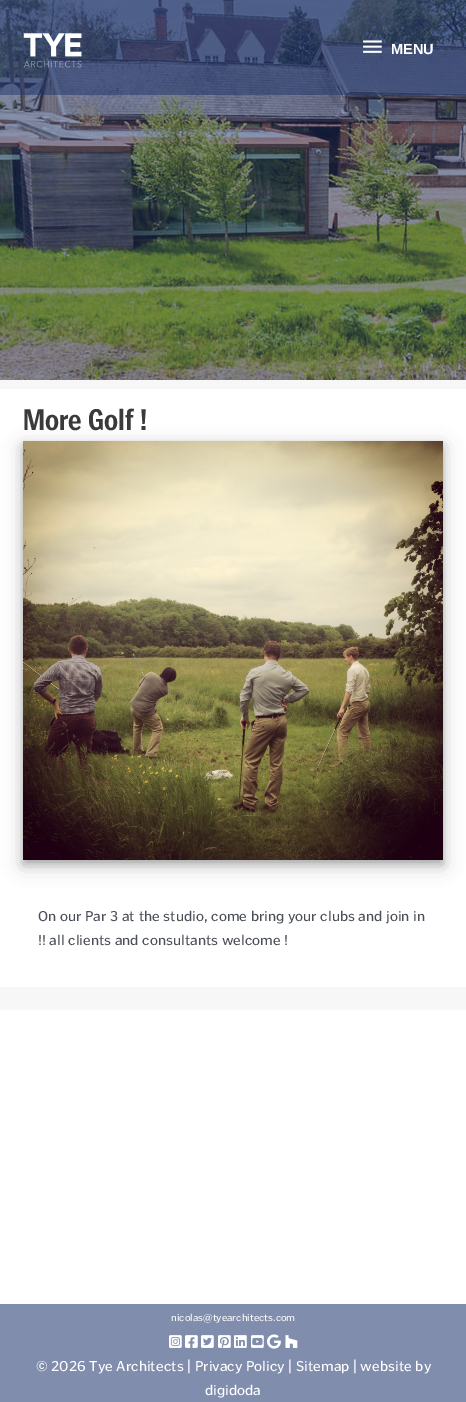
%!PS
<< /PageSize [466 1402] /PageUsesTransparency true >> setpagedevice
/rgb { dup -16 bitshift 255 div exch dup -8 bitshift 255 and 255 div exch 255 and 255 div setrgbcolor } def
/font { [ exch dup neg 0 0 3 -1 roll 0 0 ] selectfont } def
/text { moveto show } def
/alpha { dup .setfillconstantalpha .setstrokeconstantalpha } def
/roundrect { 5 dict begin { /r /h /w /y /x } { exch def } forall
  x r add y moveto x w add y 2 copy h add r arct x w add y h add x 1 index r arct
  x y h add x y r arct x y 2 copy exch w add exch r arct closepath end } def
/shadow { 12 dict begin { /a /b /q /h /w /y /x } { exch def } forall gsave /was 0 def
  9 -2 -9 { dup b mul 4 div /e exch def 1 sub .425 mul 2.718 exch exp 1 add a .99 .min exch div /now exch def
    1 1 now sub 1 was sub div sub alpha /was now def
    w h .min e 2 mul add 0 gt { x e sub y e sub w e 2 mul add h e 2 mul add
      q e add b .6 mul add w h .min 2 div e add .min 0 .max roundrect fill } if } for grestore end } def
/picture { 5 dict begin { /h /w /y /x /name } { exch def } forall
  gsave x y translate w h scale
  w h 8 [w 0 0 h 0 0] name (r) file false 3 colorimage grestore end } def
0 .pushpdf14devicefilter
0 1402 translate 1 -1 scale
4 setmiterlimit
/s1 { /LiberationSans-Bold 14.6 font 16#FFFFFF rgb } def
/s2 { /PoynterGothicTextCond-Bold 30 font 16#3A3A3A rgb } def
/s3 { /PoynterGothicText-Regular 14.6 font 16#4B4F58 rgb } def
/s4 { /PoynterGothicText-Regular 10.25 font 16#FFFFFF rgb } def
/s5 { /PoynterGothicText-Regular 14.6 font 16#FFFFFF rgb } def
16#FFFFFF rgb
0 0 466 1402 rectfill
(pic3.raw) 0 0 466 380 picture
0.5 alpha
16#1D336A rgb
0 0 466 95 rectfill
1 alpha
(pic1.raw) 23 33 59 35 picture
(pic2.raw) 363 40 19 13 picture
s1
(MENU) 391 54 text
16#F7F7F7 rgb
0 380 466 630 rectfill
16#FFFFFF rgb
0 389 466 598 rectfill
s2
(More Golf !) 23 430 text
16#000000 rgb
23 447 420 419 0 10 0.19 shadow
23 445 420 419 0 4 0.2 shadow
(pic4.raw) 23 441 420 419 picture
s3
(On our Par 3 at the studio, come bring your clubs and join in) 38 921 text
(!! all clients and consultants welcome !) 38 945 text
16#808DAC rgb
0 1304 466 98 rectfill
s4
(nicolas@tyearchitects.com) 171 1321 text
(pic5.raw) 169 1335 13 13 picture
(pic6.raw) 185 1335 13 13 picture
(pic7.raw) 201 1335 13 13 picture
(pic8.raw) 218 1335 13 13 picture
(pic9.raw) 234 1335 13 13 picture
(pic10.raw) 251 1335 13 13 picture
(pic11.raw) 267 1334 14 15 picture
(pic12.raw) 285 1335 13 13 picture
s5
(© 2026 Tye Architects | Privacy Policy | Sitemap | website by) 36 1371 text
(digidoda) 205 1395 text
.poppdf14devicefilter showpage
